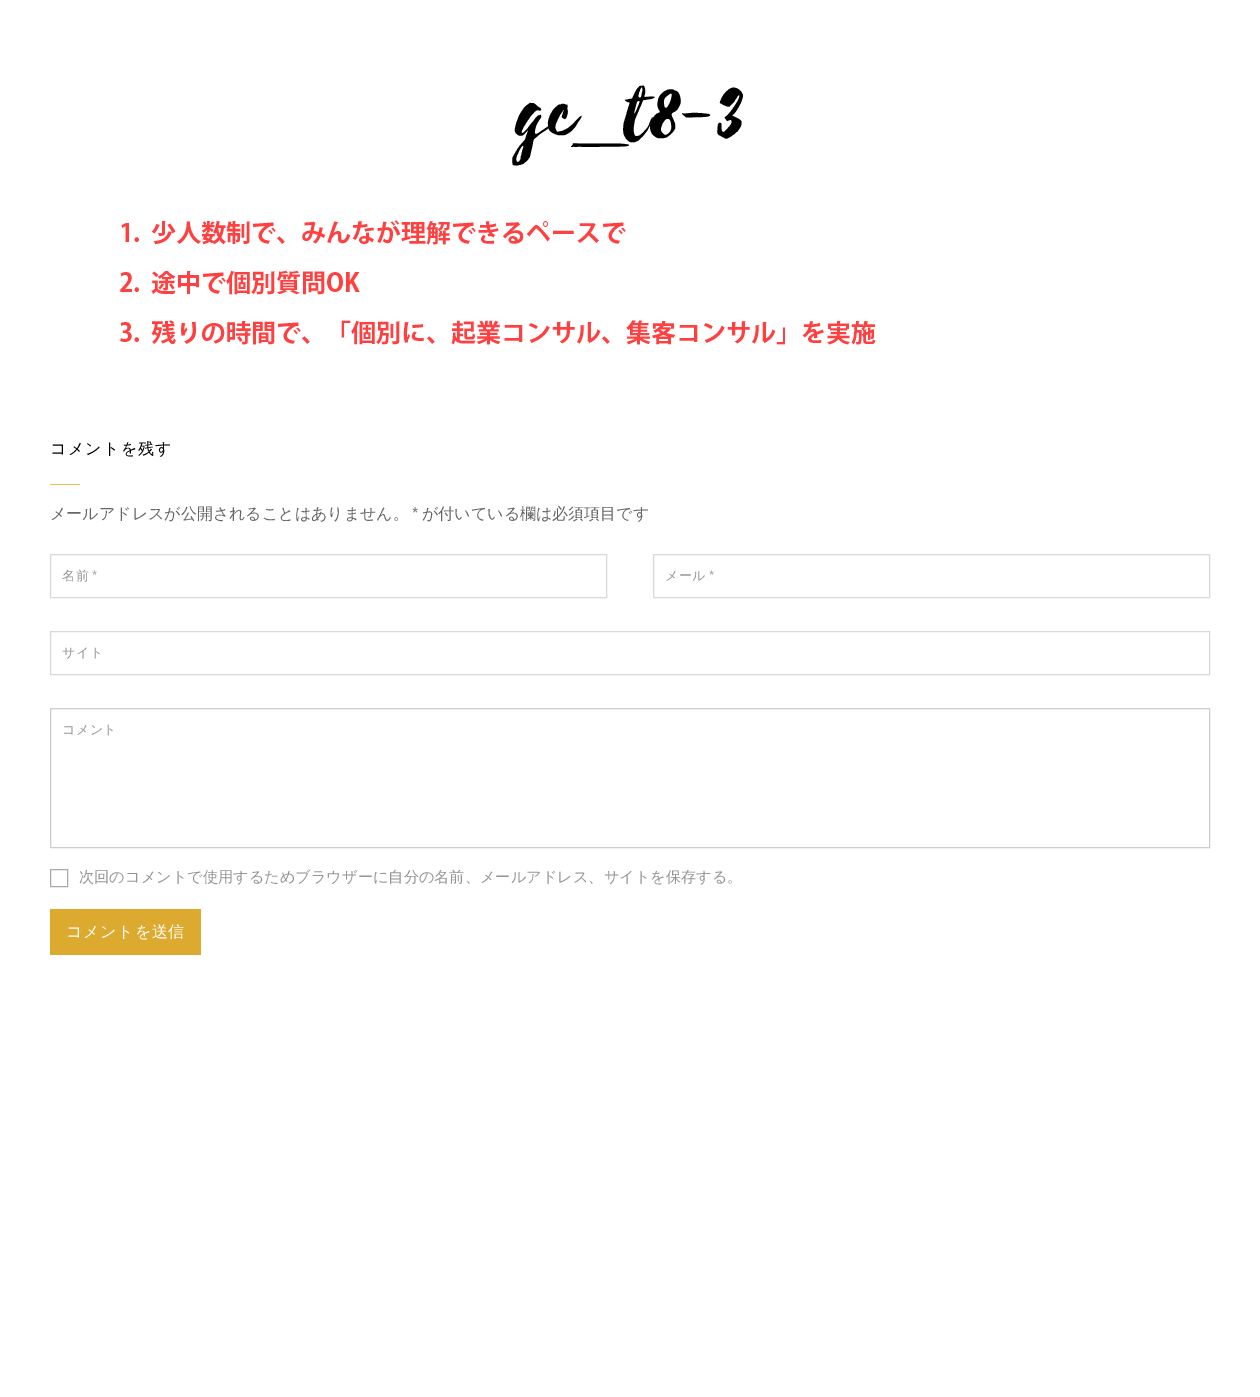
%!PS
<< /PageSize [1260 1397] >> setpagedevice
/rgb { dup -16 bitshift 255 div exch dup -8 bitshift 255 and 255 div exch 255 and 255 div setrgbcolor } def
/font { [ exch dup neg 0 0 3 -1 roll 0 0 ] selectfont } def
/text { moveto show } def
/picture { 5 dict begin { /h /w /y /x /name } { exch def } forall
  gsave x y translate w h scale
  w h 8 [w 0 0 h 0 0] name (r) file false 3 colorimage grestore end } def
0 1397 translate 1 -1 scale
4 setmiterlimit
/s1 { /WenQuanYiZenHei-Medium 16 font 16#666666 rgb } def
/s2 { /LibreFranklin-Regular 16 font 16#666666 rgb } def
/s3 { /WenQuanYiZenHei-Medium 15.2 font 16#949494 rgb } def
16#FFFFFF rgb
0 0 1260 1397 rectfill
/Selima-Regular 90 font
16#000000 rgb
518 138 moveto -2.75 0 (gc_t8-3) ashow
(pic1.raw) 120 220 756 125 picture
/WenQuanYiZenHei-Medium 16 font
50 454 moveto 1.25 0 (コメントを残す) ashow
16#EFBE5A rgb
50 484 30 1 rectfill
s1
(メールアドレスが公開されることはありません。) 50 519 text
s2
(*) 412 519 text
s1
(が付いている欄は必須項目です) 422 519 text
16#D9D9D9 rgb
50.5 554.5 556 43 rectstroke
/WenQuanYiZenHei-Medium 13 font
16#949494 rgb
62 580 moveto 0.5 0 (名前) ashow
/LibreFranklin-Regular 13 font
92 580 moveto 0.5 0 (*) ashow
16#D9D9D9 rgb
653.5 554.5 556 43 rectstroke
/WenQuanYiZenHei-Medium 13 font
16#949494 rgb
665 580 moveto 0.5 0 (メール) ashow
/LibreFranklin-Regular 13 font
709 580 moveto 0.5 0 (*) ashow
16#D9D9D9 rgb
50.5 631.5 1159 43 rectstroke
/WenQuanYiZenHei-Medium 13 font
16#949494 rgb
62 657 moveto 0.5 0 (サイト) ashow
16#CCCCCC rgb
50.5 708.5 1159 139 rectstroke
16#949494 rgb
62 734 moveto 0.5 0 (コメント) ashow
16#AAAAAA rgb
50.5 869.5 17 17 rectstroke
s3
(次回のコメントで使用するためブラウザーに自分の名前、メールアドレス、サイトを保存する。) 79 882 text
16#DCAA2E rgb
50 909 151 46 rectfill
/WenQuanYiZenHei-Medium 16 font
16#FFFFFF rgb
66 937 moveto 0.75 0 (コメントを送信) ashow
showpage
